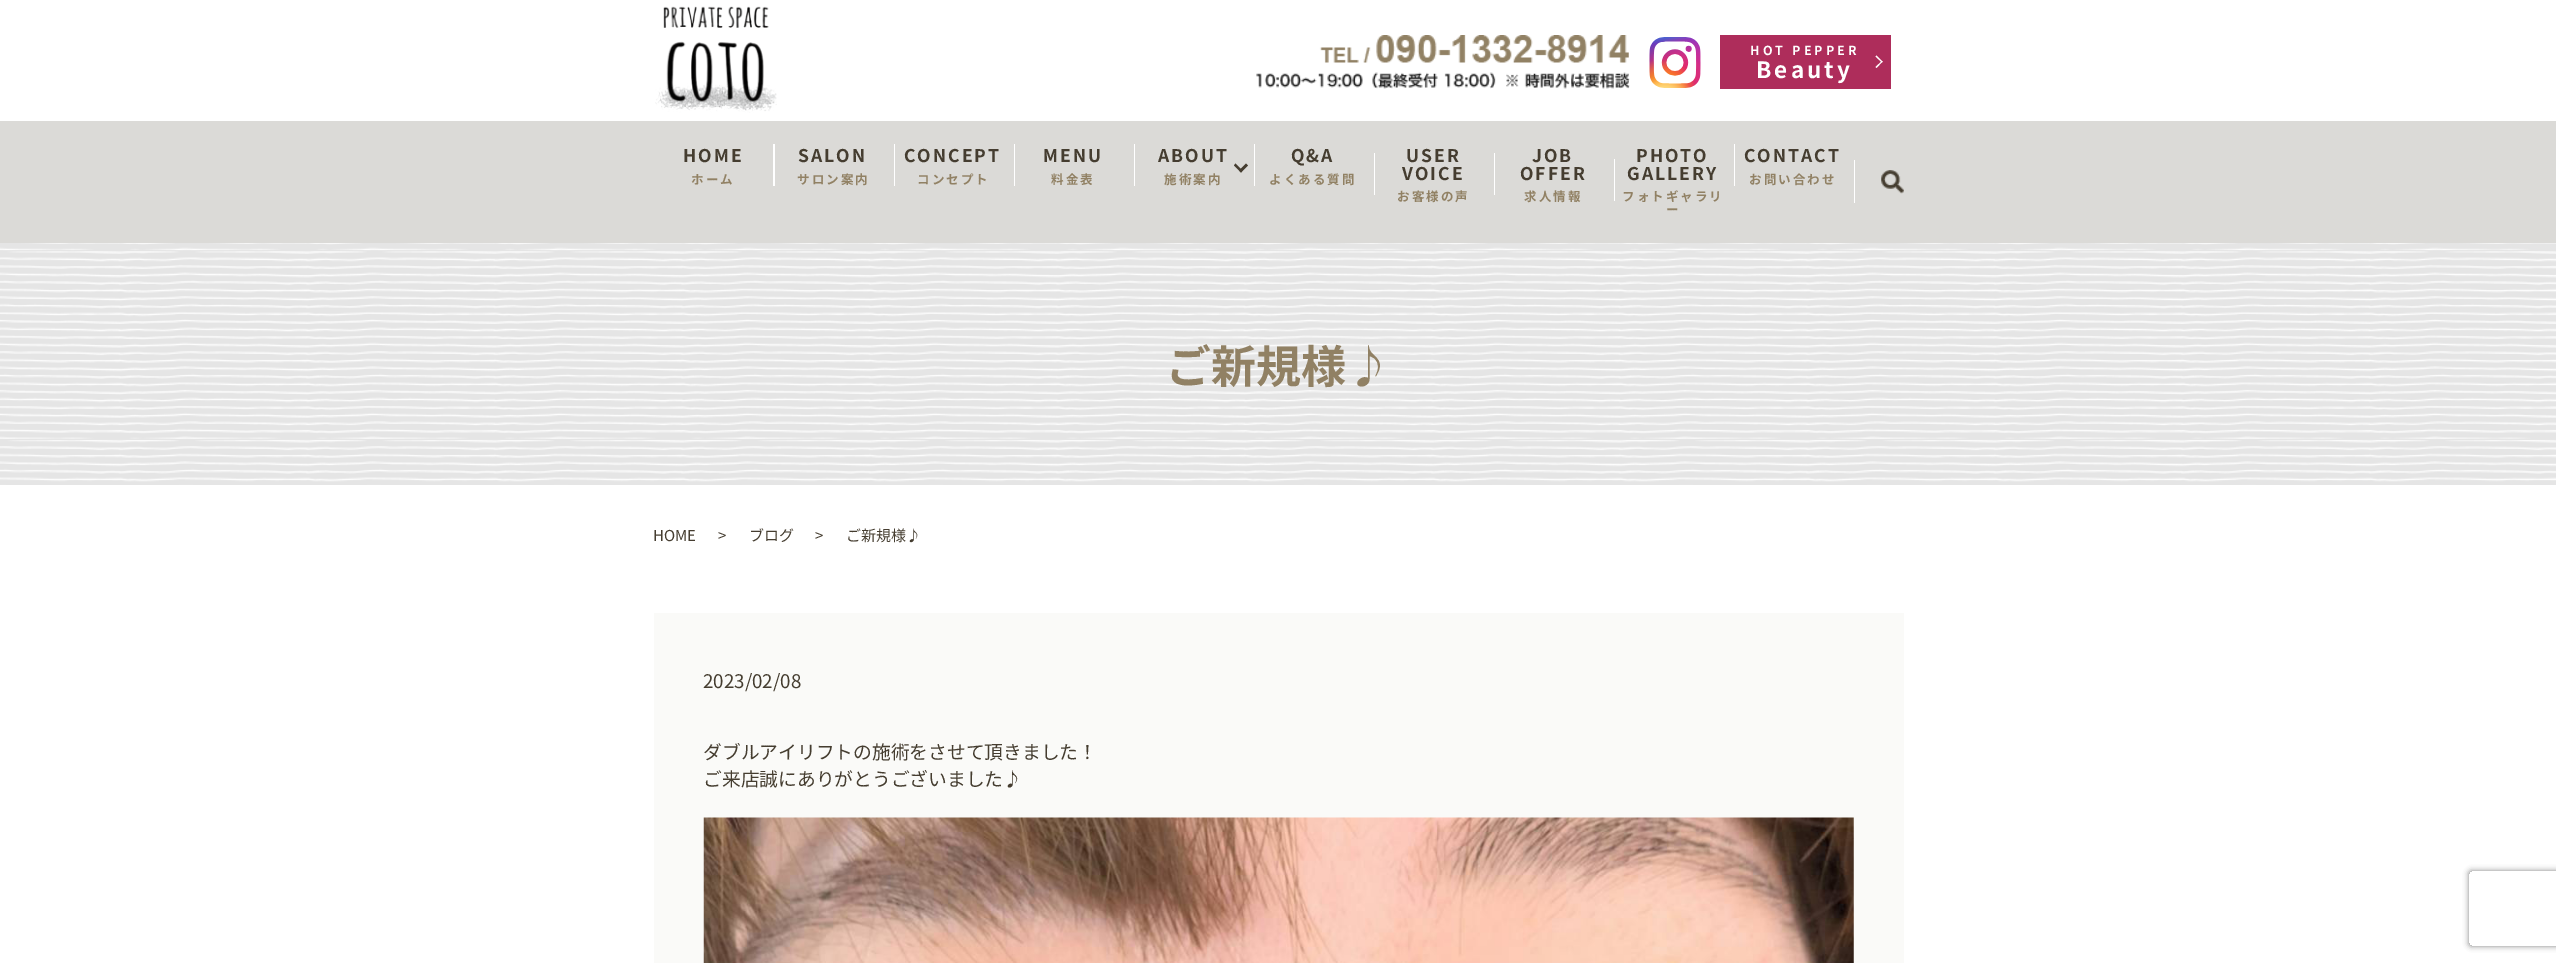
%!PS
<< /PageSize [2556 963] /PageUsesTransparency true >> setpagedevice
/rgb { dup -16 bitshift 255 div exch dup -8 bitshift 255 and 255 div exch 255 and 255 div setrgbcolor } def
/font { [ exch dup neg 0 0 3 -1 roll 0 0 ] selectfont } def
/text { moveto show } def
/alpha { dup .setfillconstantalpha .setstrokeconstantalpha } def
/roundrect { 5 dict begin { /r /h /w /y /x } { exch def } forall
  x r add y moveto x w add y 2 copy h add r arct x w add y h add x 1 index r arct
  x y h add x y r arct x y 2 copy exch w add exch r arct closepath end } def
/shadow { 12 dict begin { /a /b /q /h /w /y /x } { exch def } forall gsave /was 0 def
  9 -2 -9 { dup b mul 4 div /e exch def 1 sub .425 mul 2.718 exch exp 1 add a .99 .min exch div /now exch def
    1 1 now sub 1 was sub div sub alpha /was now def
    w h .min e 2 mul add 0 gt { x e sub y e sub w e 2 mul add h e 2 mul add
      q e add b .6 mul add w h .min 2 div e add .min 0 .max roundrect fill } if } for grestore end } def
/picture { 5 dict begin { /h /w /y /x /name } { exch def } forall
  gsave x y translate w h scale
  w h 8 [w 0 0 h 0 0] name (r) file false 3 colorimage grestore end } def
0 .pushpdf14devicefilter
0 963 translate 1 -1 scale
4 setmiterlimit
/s1 { /NotoSansJP-Bold 45 font 16#918164 rgb } def
/s2 { /NotoSansJP-Regular 15 font 16#453D30 rgb } def
/s3 { /NotoSansJP-Regular 18.75 font 16#453D30 rgb } def
16#FFFFFF rgb
0 0 2556 963 rectfill
(pic1.raw) 655 6 122 107 picture
(pic2.raw) 1256 35 374 54 picture
(pic3.raw) 1649 37 52 51 picture
16#AE2D5B rgb
1720 35 171 54 rectfill
/NotoSansJP-Bold 12.5 font
16#FFFFFF rgb
1750 55 moveto 3.1 0 (HOT PEPPER) ashow
/NotoSansJP-Bold 22.5 font
1756 78 moveto 3.1 0 (Beauty) ashow
1876.5 55.5 moveto 1882.5 61.5 lineto 1882 62.5 lineto 1875.5 56.5 lineto closepath fill
1882 61 moveto 1882.5 61.5 lineto 1876.5 68 lineto 1875.5 67 lineto closepath fill
16#DBDAD7 rgb
0 121 2556 122 rectfill
/NotoSansJP-Bold 17.5 font
16#453D30 rgb
683 162 moveto 2 0 (HOME) ashow
16#FFFFFF rgb
773 144 2 42 rectfill
/NotoSansJP-Bold 12.5 font
16#918164 rgb
691 184 moveto 2 0 (ホーム) ashow
/NotoSansJP-Bold 17.5 font
16#453D30 rgb
798 162 moveto 2 0 (SALON) ashow
/NotoSansJP-Bold 12.5 font
16#918164 rgb
797 184 moveto 2 0 (サロン案内) ashow
16#FFFFFF rgb
894 144 1 42 rectfill
/NotoSansJP-Bold 17.5 font
16#453D30 rgb
904 162 moveto 2 0 (CONCEPT) ashow
/NotoSansJP-Bold 12.5 font
16#918164 rgb
917 184 moveto 2 0 (コンセプト) ashow
16#FFFFFF rgb
1014 144 1 42 rectfill
/NotoSansJP-Bold 17.5 font
16#453D30 rgb
1043 162 moveto 2 0 (MENU) ashow
/NotoSansJP-Bold 12.5 font
16#918164 rgb
1051 184 moveto 2 0 (料金表) ashow
16#FFFFFF rgb
1134 144 1 42 rectfill
/NotoSansJP-Bold 17.5 font
16#453D30 rgb
1158 162 moveto 2 0 (ABOUT) ashow
1248 165.5 moveto 1241 172.5 lineto 1239 170.5 lineto 1246 163.5 lineto closepath fill
1242.5 170.5 moveto 1241 172.5 lineto 1234 165.5 lineto 1235.5 163.5 lineto closepath fill
/NotoSansJP-Bold 12.5 font
16#918164 rgb
1164 184 moveto 2 0 (施術案内) ashow
16#FFFFFF rgb
1254 144 1 42 rectfill
/NotoSansJP-Bold 17.5 font
16#453D30 rgb
1291 162 moveto 2 0 (Q&A) ashow
/NotoSansJP-Bold 12.5 font
16#918164 rgb
1269 184 moveto 2 0 (よくある質問) ashow
16#FFFFFF rgb
1374 153 1 42 rectfill
/NotoSansJP-Bold 17.5 font
16#453D30 rgb
1406 162 moveto 2 0 (USER) ashow
1402 180 moveto 2 0 (VOICE) ashow
/NotoSansJP-Bold 12.5 font
16#918164 rgb
1397 201 moveto 2 0 (お客様の声) ashow
16#FFFFFF rgb
1494 153 1 42 rectfill
/NotoSansJP-Bold 17.5 font
16#453D30 rgb
1532 162 moveto 2 0 (JOB) ashow
1520 180 moveto 2 0 (OFFER) ashow
/NotoSansJP-Bold 12.5 font
16#918164 rgb
1524 201 moveto 2 0 (求人情報) ashow
/NotoSansJP-Bold 17.5 font
16#453D30 rgb
1636 162 moveto 2 0 (PHOTO) ashow
16#FFFFFF rgb
1614 159 1 42 rectfill
16#453D30 rgb
1627 180 moveto 2 0 (GALLERY) ashow
/NotoSansJP-Bold 12.5 font
16#918164 rgb
1622 201 moveto 2 0 (フォトギャラリ) ashow
1666 214 moveto 2 0 (ー) ashow
16#FFFFFF rgb
1734 144 1 42 rectfill
/NotoSansJP-Bold 17.5 font
16#453D30 rgb
1744 162 moveto 2 0 (CONTACT) ashow
/NotoSansJP-Bold 12.5 font
16#918164 rgb
1749 184 moveto 2 0 (お問い合わせ) ashow
(pic4.raw) 1881 170 23 24 picture
16#FFFFFF rgb
1854 160 1 43 rectfill
(pic5.raw) 0 243 2556 242 picture
s1
(ご新規様♪) 1166 383 text
s2
(HOME) 653 541 text
(>) 718 541 text
(ブログ) 749 541 text
(>) 815 541 text
(ご新規様♪) 846 541 text
16#FAFAF8 rgb
654 613 1250 350 rectfill
s3
(2023/02/08) 703 688 text
(ダブルアイリフトの施術をさせて頂きました！) 703 759 text
(ご来店誠にありがとうございました♪) 703 786 text
(pic6.raw) 703 817 1151 146 picture
gsave
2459 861 moveto 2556 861 lineto 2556 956 lineto 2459 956 lineto closepath 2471.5 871 moveto 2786.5 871 lineto 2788 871 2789 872 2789 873.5 curveto 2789 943.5 lineto 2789 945 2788 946 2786.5 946 curveto 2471.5 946 lineto 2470 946 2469 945 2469 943.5 curveto 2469 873.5 lineto 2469 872 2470 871 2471.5 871 curveto closepath eoclip newpath
16#808080 rgb
2469 871 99 75 2.5 3 1 shadow
grestore
.poppdf14devicefilter showpage
